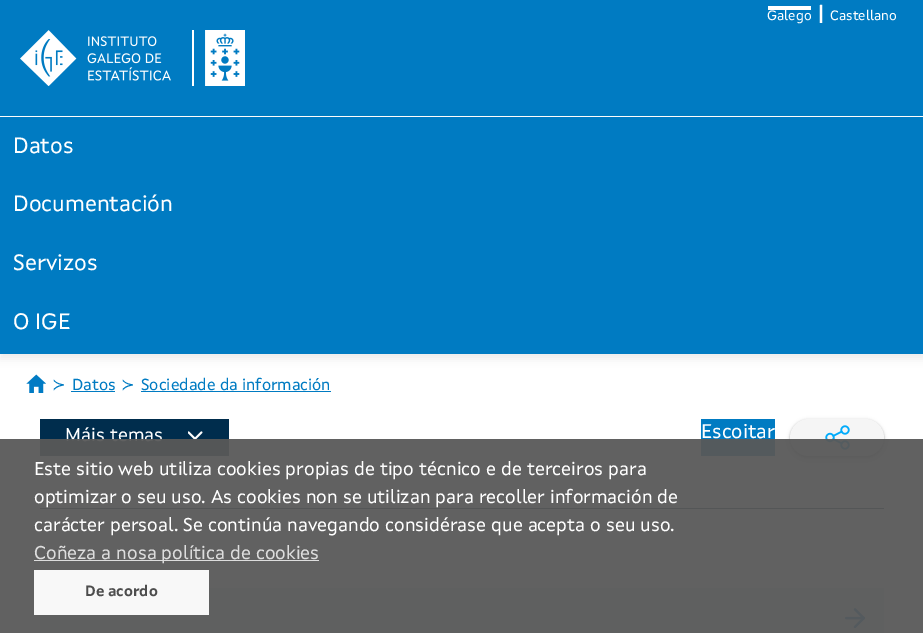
%!PS
<< /PageSize [923 633] /PageUsesTransparency true >> setpagedevice
/rgb { dup -16 bitshift 255 div exch dup -8 bitshift 255 and 255 div exch 255 and 255 div setrgbcolor } def
/font { [ exch dup neg 0 0 3 -1 roll 0 0 ] selectfont } def
/text { moveto show } def
/alpha { dup .setfillconstantalpha .setstrokeconstantalpha } def
/roundrect { 5 dict begin { /r /h /w /y /x } { exch def } forall
  x r add y moveto x w add y 2 copy h add r arct x w add y h add x 1 index r arct
  x y h add x y r arct x y 2 copy exch w add exch r arct closepath end } def
/shadow { 12 dict begin { /a /b /q /h /w /y /x } { exch def } forall gsave /was 0 def
  9 -2 -9 { dup b mul 4 div /e exch def 1 sub .425 mul 2.718 exch exp 1 add a .99 .min exch div /now exch def
    1 1 now sub 1 was sub div sub alpha /was now def
    w h .min e 2 mul add 0 gt { x e sub y e sub w e 2 mul add h e 2 mul add
      q e add b .6 mul add w h .min 2 div e add .min 0 .max roundrect fill } if } for grestore end } def
/picture { 5 dict begin { /h /w /y /x /name } { exch def } forall
  gsave x y translate w h scale
  w h 8 [w 0 0 h 0 0] name (r) file false 3 colorimage grestore end } def
0 .pushpdf14devicefilter
0 633 translate 1 -1 scale
4 setmiterlimit
/s1 { /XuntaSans-Regular 13.75 font 16#FFFFFF rgb } def
/s2 { /XuntaSans-Bold 20 font 16#FFFFFF rgb } def
/s3 { /XuntaSans-Regular 22.5 font 16#FFFFFF rgb } def
/s4 { /DejaVuSans-Regular 16.25 font 16#007BC2 rgb } def
/s5 { /XuntaSans-Regular 16.25 font 16#007BC2 rgb } def
/s6 { /XuntaSans-Regular 18.75 font 16#FFFFFF rgb } def
/s7 { /XuntaSans-Regular 20 font 16#FFFFFF rgb } def
/s8 { /XuntaSans-Regular 18.75 font 16#DDDDDD rgb } def
/s9 { /XuntaSans-Bold 15 font 16#4D4D4D rgb } def
16#FFFFFF rgb
0 0 923 633 rectfill
16#007BC2 rgb
0 0 923 116 rectfill
16#FFFFFF rgb
768 6 43 4 rectfill
s1
(Galego) 767 20 text
s2
(|) 818 20 text
s1
(Castellano) 830 20 text
(pic1.raw) 20 30 225 56 picture
16#000000 rgb
0 121 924 238 0 4 0.07 shadow
16#007BC2 rgb
0 117 923 237 rectfill
s3
(Datos) 13 153 text
(Documentación) 13 211 text
(Servizos) 13 270 text
(O IGE) 13 329 text
(pic2.raw) 26 374 20 19 picture
s4
(≻) 52 390 text
s5
(Datos) 72 390 text
71 391 44 1 rectfill
s4
(≻) 121 390 text
s5
(Sociedade da información) 141 390 text
141 391 190 1 rectfill
16#002D4D rgb
40 419 189 37 rectfill
s6
(Máis temas) 65 441 text
(pic3.raw) 188 431 15 9 picture
16#007BC2 rgb
701 419 74 37 rectfill
s7
(Escoitar) 701 438 text
16#000000 rgb
790 420 94 38 19 1 0.24 shadow
790 420 94 38 19 2 0.12 shadow
16#F5F5F5 rgb
808.5 419 moveto 838 419 lineto 838 456 lineto 808.5 456 lineto 798.5 456 790 447.5 790 437.5 curveto 790 427.5 798.5 419 808.5 419 curveto closepath fill
838 419 moveto 865.5 419 lineto 875.5 419 884 427.5 884 437.5 curveto 884 447.5 875.5 456 865.5 456 curveto 838 456 lineto closepath fill
(pic4.raw) 825 425 25 25 picture
16#002D4D rgb
40 508 844 1 rectfill
16#EBF2FA rgb
40 588 844 45 rectfill
(pic5.raw) 845 608 20 21 picture
0.95 alpha
16#585858 rgb
0 439 923 194 rectfill
1 alpha
s6
(Este sitio web utiliza cookies propias de tipo técnico e de terceiros para) 34 475 text
(optimizar o seu uso. As cookies non se utilizan para recoller información de) 34 503 text
(carácter persoal. Se continúa navegando considérase que acepta o seu uso.) 34 531 text
16#DDDDDD rgb
34 560 285 1 rectfill
(Coñeza a nosa política de cookies) 34 559 text
16#F8F8F8 rgb
34 570 175 45 rectfill
s9
(De acordo) 85 596 text
.poppdf14devicefilter showpage
